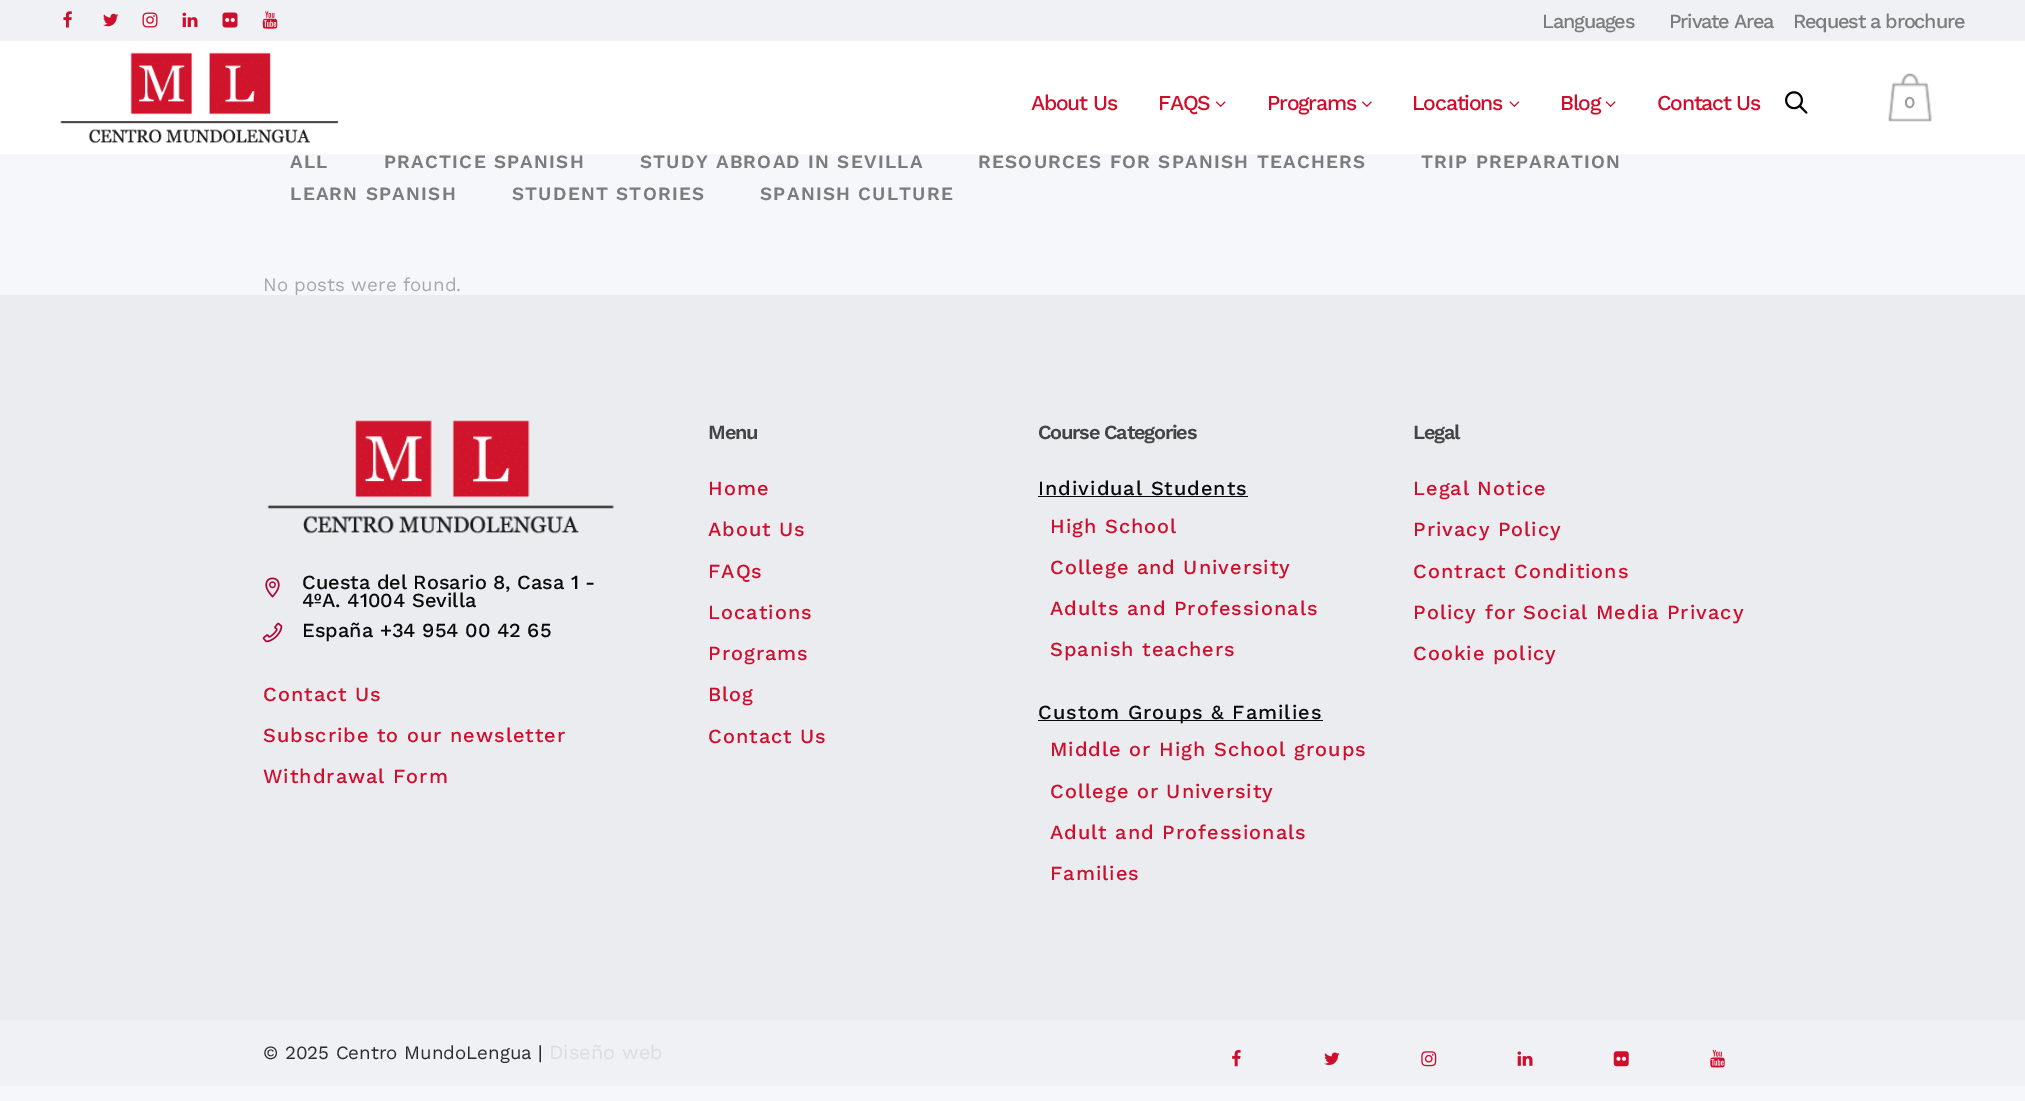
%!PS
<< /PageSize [2025 1101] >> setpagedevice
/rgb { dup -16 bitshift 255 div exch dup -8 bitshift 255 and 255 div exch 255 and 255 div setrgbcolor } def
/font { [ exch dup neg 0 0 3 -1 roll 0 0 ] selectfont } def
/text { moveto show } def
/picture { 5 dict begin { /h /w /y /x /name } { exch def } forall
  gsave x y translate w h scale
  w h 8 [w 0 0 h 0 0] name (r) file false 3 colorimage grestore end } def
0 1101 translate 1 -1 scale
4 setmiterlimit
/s1 { /Raleway-SemiBold 18.75 font 16#9D9D9D rgb } def
/s2 { /WorkSans-Regular 18.75 font 16#A8A8A9 rgb } def
/s3 { /WorkSans-Medium 20 font 16#0A0A0A rgb } def
/s4 { /WorkSans-Regular 18.75 font 16#292D33 rgb } def
/s5 { /WorkSans-Regular 20 font 16#DDDDDD rgb } def
16#F6F7FB rgb
0 0 2025 1101 rectfill
16#F0F1F4 rgb
0 0 2025 41 rectfill
(pic1.raw) 63 11 9 17 picture
(pic2.raw) 103 13 16 14 picture
(pic3.raw) 142 12 16 16 picture
(pic4.raw) 182 12 16 15 picture
(pic5.raw) 222 12 16 16 picture
(pic6.raw) 262 11 16 18 picture
/WorkSans-Medium 20 font
16#7C7C7C rgb
1542 28 moveto -1.25 0 (Languages) ashow
1669 28 moveto -1.25 0 (Private Area) ashow
1793 28 moveto -1.25 0 (Request a brochure) ashow
16#FFFFFF rgb
0 41 2025 113 rectfill
(pic7.raw) 60 52 279 92 picture
/WorkSans-Medium 21.25 font
16#CE0E2D rgb
1031 110 moveto -1.25 0 (About Us) ashow
1158 110 moveto -1.25 0 (FAQS) ashow
(pic8.raw) 1215 101 11 6 picture
1267 110 moveto -1.25 0 (Programs) ashow
(pic9.raw) 1362 101 10 6 picture
1412 110 moveto -1.25 0 (Locations) ashow
(pic10.raw) 1509 101 11 6 picture
1560 110 moveto -1.25 0 (Blog) ashow
(pic8.raw) 1605 101 11 6 picture
1657 110 moveto -1.25 0 (Contact Us) ashow
(pic11.raw) 1785 91 23 23 picture
(pic12.raw) 1888 73 44 49 picture
s1
(0) 1904 108 text
/WorkSans-SemiBold 18.75 font
16#7C7C7C rgb
290 168 moveto 1.25 0 (ALL) ashow
384 168 moveto 1.25 0 (PRACTICE SPANISH) ashow
640 168 moveto 1.25 0 (STUDY ABROAD IN SEVILLA) ashow
978 168 moveto 1.25 0 (RESOURCES FOR SPANISH TEACHERS) ashow
1421 168 moveto 1.25 0 (TRIP PREPARATION) ashow
290 200 moveto 1.25 0 (LEARN SPANISH) ashow
512 200 moveto 1.25 0 (STUDENT STORIES) ashow
760 200 moveto 1.25 0 (SPANISH CULTURE) ashow
s2
(No posts were found.) 263 291 text
16#EAECEF rgb
0 295 2025 725 rectfill
(pic13.raw) 267 420 347 114 picture
(pic14.raw) 265 577 15 21 picture
s3
(Cuesta del Rosario 8, Casa 1 -) 302 589 text
(4ºA. 41004 Sevilla) 302 607 text
(pic15.raw) 262 622 21 21 picture
(España +34 954 00 42 65) 302 637 text
16#CE0E2D rgb
263 701 moveto 1 0 (Contact Us) ashow
263 742 moveto 1 0 (Subscribe to our newsletter) ashow
263 783 moveto 1 0 (Withdrawal Form) ashow
/WorkSans-SemiBold 20 font
16#444444 rgb
708 439 moveto -1.25 0 (Menu) ashow
/WorkSans-Medium 20 font
16#CE0E2D rgb
708 495 moveto 1 0 (Home) ashow
708 536 moveto 1 0 (About Us) ashow
708 578 moveto 1 0 (FAQs) ashow
708 619 moveto 1 0 (Locations) ashow
708 660 moveto 1 0 (Programs) ashow
708 701 moveto 1 0 (Blog) ashow
708 743 moveto 1 0 (Contact Us) ashow
/WorkSans-SemiBold 20 font
16#444444 rgb
1038 439 moveto -1.25 0 (Course Categories) ashow
/WorkSans-Medium 20 font
16#0A0A0A rgb
1038 495 moveto 1 0 (Individual Students) ashow
16#0C0C0C rgb
1038 496 210 1 rectfill
16#CE0E2D rgb
1050 533 moveto 1 0 (High School) ashow
1050 574 moveto 1 0 (College and University) ashow
1050 615 moveto 1 0 (Adults and Professionals) ashow
1050 656 moveto 1 0 (Spanish teachers) ashow
16#0C0C0C rgb
1038 720 285 1 rectfill
16#0A0A0A rgb
1038 719 moveto 1 0 (Custom Groups & Families) ashow
16#CE0E2D rgb
1050 756 moveto 1 0 (Middle or High School groups) ashow
1050 798 moveto 1 0 (College or University) ashow
1050 839 moveto 1 0 (Adult and Professionals) ashow
1050 880 moveto 1 0 (Families) ashow
/WorkSans-SemiBold 20 font
16#444444 rgb
1413 439 moveto -1.25 0 (Legal) ashow
/WorkSans-Medium 20 font
16#CE0E2D rgb
1413 495 moveto 1 0 (Legal Notice) ashow
1413 536 moveto 1 0 (Privacy Policy) ashow
1413 578 moveto 1 0 (Contract Conditions) ashow
1413 619 moveto 1 0 (Policy for Social Media Privacy) ashow
1413 660 moveto 1 0 (Cookie policy) ashow
16#F0F1F4 rgb
0 1020 2025 66 rectfill
s4
(© 2025 Centro MundoLengua |) 263 1059 text
s5
(Diseño web) 549 1059 text
(pic16.raw) 1232 1050 9 17 picture
(pic17.raw) 1324 1052 16 13 picture
(pic18.raw) 1421 1051 16 16 picture
(pic19.raw) 1517 1051 16 15 picture
(pic20.raw) 1613 1051 16 16 picture
(pic21.raw) 1710 1050 15 18 picture
showpage
